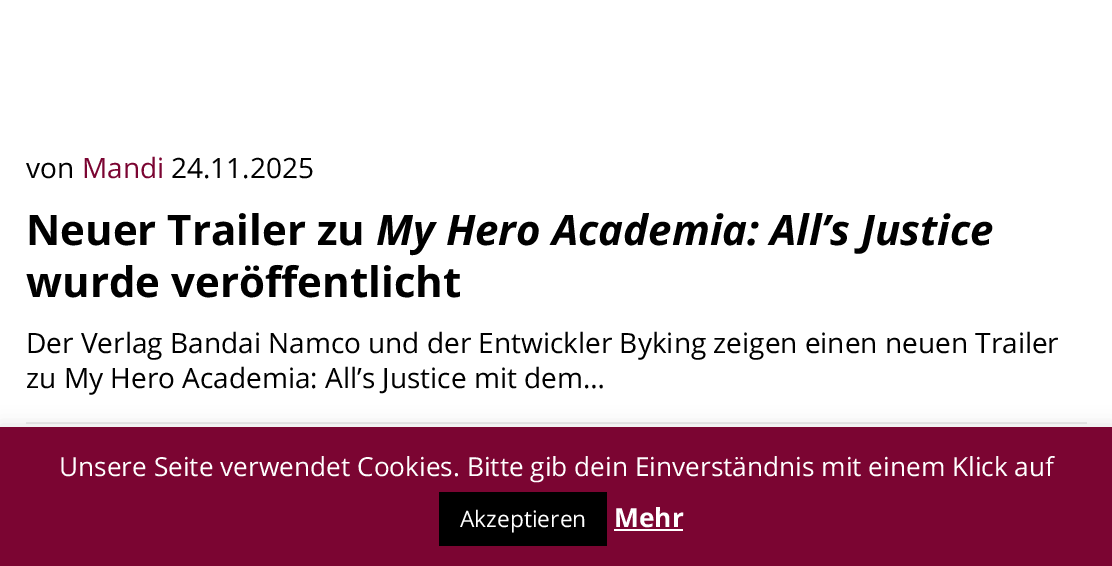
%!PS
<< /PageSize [1112 566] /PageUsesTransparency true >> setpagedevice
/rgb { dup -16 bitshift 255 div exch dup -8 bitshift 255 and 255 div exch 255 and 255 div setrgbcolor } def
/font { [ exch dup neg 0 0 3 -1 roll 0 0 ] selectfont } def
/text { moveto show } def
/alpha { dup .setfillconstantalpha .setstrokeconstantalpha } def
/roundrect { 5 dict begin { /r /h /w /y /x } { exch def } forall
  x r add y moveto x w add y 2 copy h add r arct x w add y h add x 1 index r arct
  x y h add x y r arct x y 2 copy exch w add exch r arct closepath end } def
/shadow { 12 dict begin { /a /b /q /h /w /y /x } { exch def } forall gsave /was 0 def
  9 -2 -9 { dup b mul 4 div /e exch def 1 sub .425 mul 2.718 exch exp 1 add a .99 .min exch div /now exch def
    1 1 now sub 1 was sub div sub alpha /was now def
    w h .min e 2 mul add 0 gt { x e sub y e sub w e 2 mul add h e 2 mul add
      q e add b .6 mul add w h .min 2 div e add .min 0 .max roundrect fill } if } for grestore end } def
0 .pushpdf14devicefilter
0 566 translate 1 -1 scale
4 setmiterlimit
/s1 { /OpenSans-Regular 28 font 16#000000 rgb } def
/s2 { /OpenSans-Regular 28 font 16#7B0532 rgb } def
/s3 { /OpenSans-Bold 42 font 16#000000 rgb } def
/s4 { /OpenSans-BoldItalic 42 font 16#000000 rgb } def
/s5 { /OpenSans-Regular 26.25 font 16#FFFFFF rgb } def
/s6 { /OpenSans-Regular 22.75 font 16#FFFFFF rgb } def
/s7 { /OpenSans-Bold 26.25 font 16#FFFFFF rgb } def
16#FFFFFF rgb
0 0 1112 566 rectfill
s1
(von) 26 178 text
s2
(Mandi) 82 178 text
s1
(24.11.2025) 171 178 text
s3
(Neuer Trailer zu) 26 245 text
s4
(My Hero Academia: All’s Justice) 376 245 text
s3
(wurde veröffentlicht) 26 297 text
s1
(Der Verlag Bandai Namco und der Entwickler Byking zeigen einen neuen Trailer) 26 353 text
(zu My Hero Academia: All’s Justice mit dem…) 26 388 text
16#E9E9E9 rgb
26 422 1061 2 rectfill
16#ACABAB rgb
0 425 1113 140 0 9 0.3 shadow
16#7B0532 rgb
0 427 1112 139 rectfill
s5
(Unsere Seite verwendet Cookies. Bitte gib dein Einverständnis mit einem Klick auf) 59 476 text
16#000000 rgb
439 492 168 54 rectfill
s6
(Akzeptieren) 460 527 text
s7
(Mehr) 614 527 text
614 529 69 2 rectfill
.poppdf14devicefilter showpage
